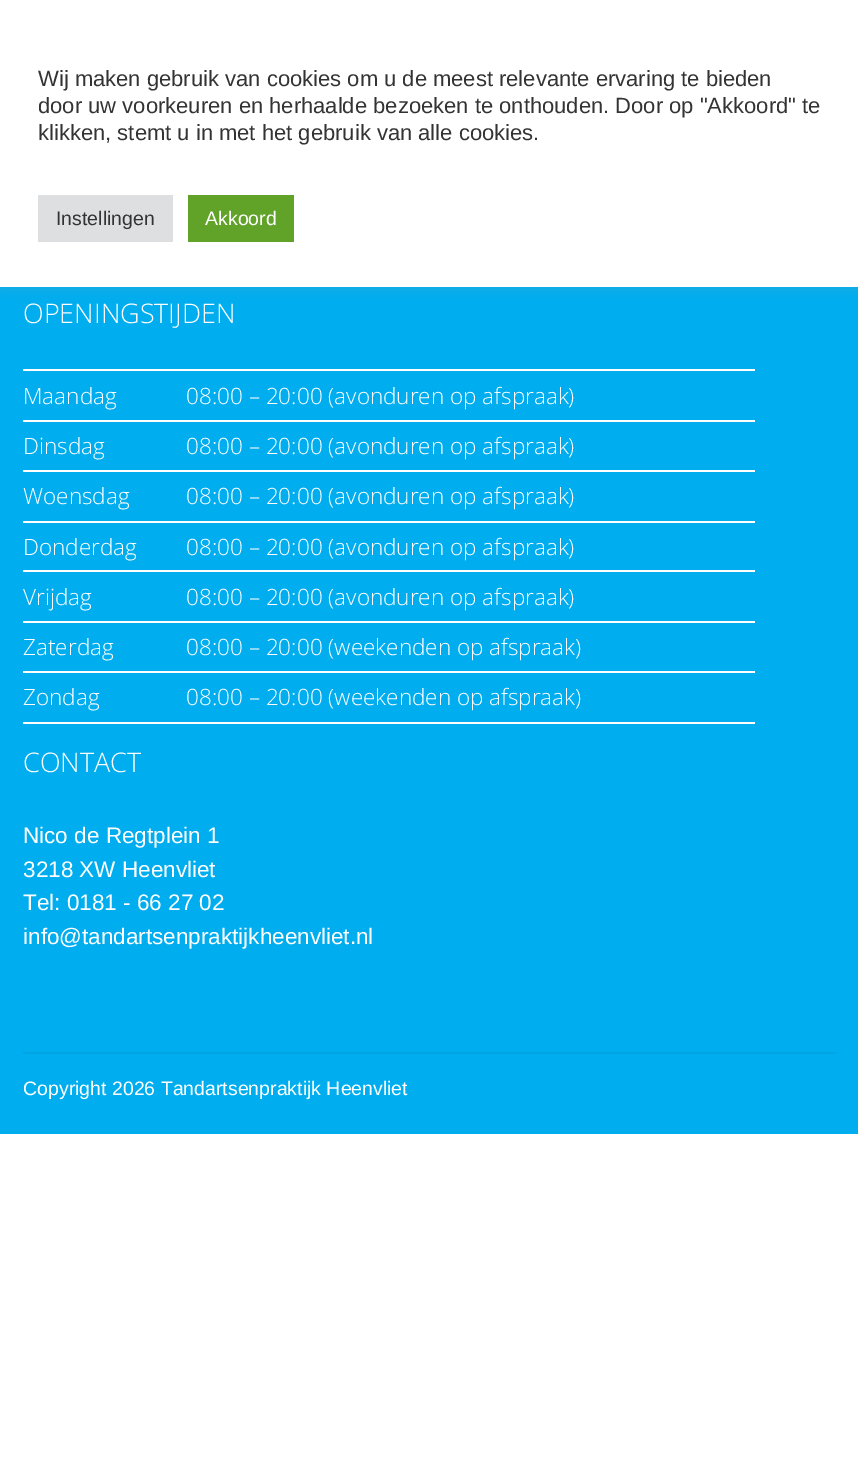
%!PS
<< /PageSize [858 1462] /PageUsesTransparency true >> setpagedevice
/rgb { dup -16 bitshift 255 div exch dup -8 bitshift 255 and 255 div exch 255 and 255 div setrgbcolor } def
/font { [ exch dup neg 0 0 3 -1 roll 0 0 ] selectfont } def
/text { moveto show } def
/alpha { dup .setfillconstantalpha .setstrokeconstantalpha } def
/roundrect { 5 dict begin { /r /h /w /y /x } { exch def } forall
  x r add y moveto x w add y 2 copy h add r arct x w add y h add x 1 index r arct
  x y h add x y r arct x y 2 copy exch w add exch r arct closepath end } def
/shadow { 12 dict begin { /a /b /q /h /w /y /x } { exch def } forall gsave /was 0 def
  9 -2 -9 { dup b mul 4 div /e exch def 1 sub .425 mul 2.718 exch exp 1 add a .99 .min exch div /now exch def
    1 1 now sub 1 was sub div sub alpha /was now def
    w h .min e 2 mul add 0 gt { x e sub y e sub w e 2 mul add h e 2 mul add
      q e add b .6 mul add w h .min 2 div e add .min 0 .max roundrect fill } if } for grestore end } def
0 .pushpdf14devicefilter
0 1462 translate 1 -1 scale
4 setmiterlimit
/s1 { /LiberationSans-Regular 22 font 16#333333 rgb } def
/s2 { /LiberationSans-Regular 19.5 font 16#333333 rgb } def
/s3 { /LiberationSans-Regular 19.5 font 16#FFFFFF rgb } def
/s4 { /OpenSans-Light 27 font 16#FFFFFF rgb } def
/s5 { /OpenSans-Light 22.5 font 16#FFFFFF rgb } def
/s6 { /LiberationSans-Regular 22.5 font 16#FFFFFF rgb } def
16#FFFFFF rgb
0 0 858 1462 rectfill
16#00ADEF rgb
0 287 858 847 rectfill
16#ACABAB rgb
0 -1 858 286 0 7.5 0.3 shadow
16#FFFFFF rgb
0 0 858 287 rectfill
s1
(Wij maken gebruik van cookies om u de meest relevante ervaring te bieden) 38 86 text
(door uw voorkeuren en herhaalde bezoeken te onthouden. Door op "Akkoord" te) 38 113 text
(klikken, stemt u in met het gebruik van alle cookies.) 38 140 text
16#DEDFE0 rgb
38 195 135 47 rectfill
s2
(Instellingen) 56 225 text
16#61A229 rgb
188 195 106 47 rectfill
s3
(Akkoord) 205 225 text
s4
(OPENINGSTIJDEN) 23 323 text
23 369 732 2 rectfill
s5
(Maandag) 23 404 text
(08:00 – 20:00 \(avonduren op afspraak\)) 186 404 text
23 420 732 2 rectfill
(Dinsdag) 23 454 text
23 470 732 2 rectfill
(08:00 – 20:00 \(avonduren op afspraak\)) 186 454 text
(Woensdag) 23 504 text
23 521 732 2 rectfill
(08:00 – 20:00 \(avonduren op afspraak\)) 186 504 text
(Donderdag) 23 555 text
23 570 732 2 rectfill
(08:00 – 20:00 \(avonduren op afspraak\)) 186 555 text
(Vrijdag) 23 605 text
23 621 732 2 rectfill
(08:00 – 20:00 \(avonduren op afspraak\)) 186 605 text
(Zaterdag) 23 655 text
23 671 732 2 rectfill
(08:00 – 20:00 \(weekenden op afspraak\)) 186 655 text
(Zondag) 23 705 text
23 722 732 2 rectfill
(08:00 – 20:00 \(weekenden op afspraak\)) 186 705 text
s4
(CONTACT) 23 772 text
s6
(Nico de Regtplein 1) 23 843 text
(3218 XW Heenvliet) 23 877 text
(Tel: 0181 - 66 27 02) 23 910 text
(info@tandartsenpraktijkheenvliet.nl) 23 944 text
16#00A4E3 rgb
23 1052 813 2 rectfill
s3
(Copyright 2026 Tandartsenpraktijk Heenvliet) 23 1095 text
.poppdf14devicefilter showpage
